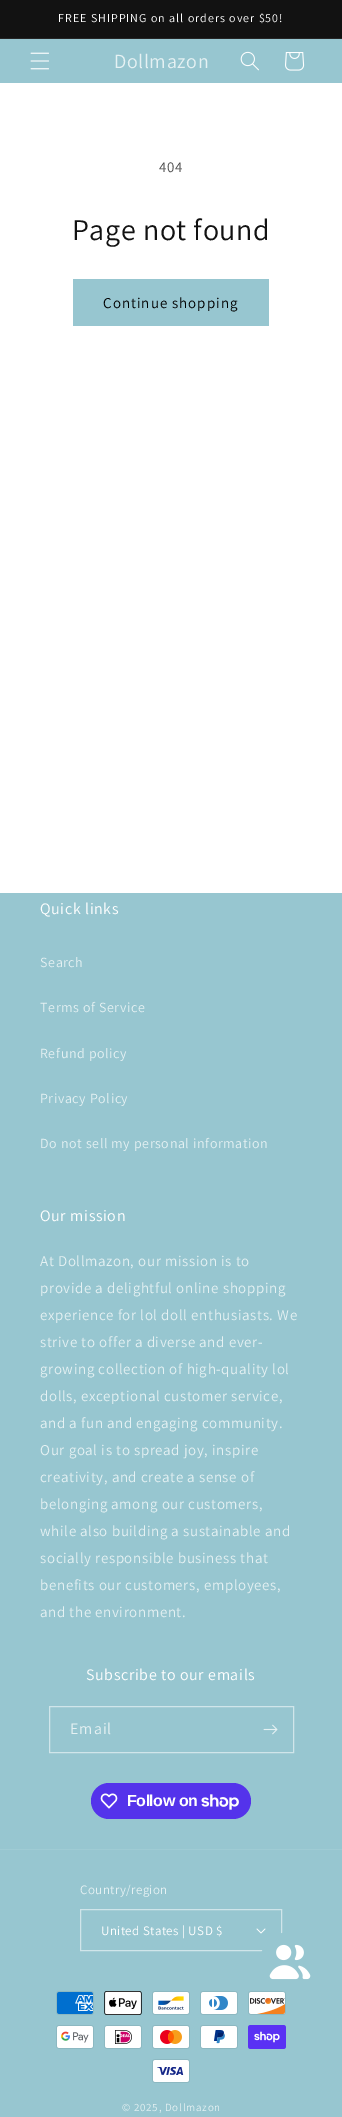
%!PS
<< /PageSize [342 2117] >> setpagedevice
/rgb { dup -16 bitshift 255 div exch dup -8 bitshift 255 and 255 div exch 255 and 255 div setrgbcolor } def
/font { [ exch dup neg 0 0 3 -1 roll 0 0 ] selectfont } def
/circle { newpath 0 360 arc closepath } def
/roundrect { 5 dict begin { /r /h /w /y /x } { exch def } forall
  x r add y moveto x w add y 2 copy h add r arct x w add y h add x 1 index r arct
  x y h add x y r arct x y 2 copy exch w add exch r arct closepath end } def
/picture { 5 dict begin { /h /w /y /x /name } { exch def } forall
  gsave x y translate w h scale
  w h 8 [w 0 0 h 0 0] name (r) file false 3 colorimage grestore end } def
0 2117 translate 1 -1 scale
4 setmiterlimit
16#FFFFFF rgb
0 0 342 2117 rectfill
16#121212 rgb
0 0 342 38 rectfill
16#252525 rgb
0 38 342 1 rectfill
/Assistant-Regular 12 font
16#FFFFFF rgb
58 22 moveto 1 0 (FREE SHIPPING on all orders over $50!) ashow
16#97C6D0 rgb
0 39 342 44 rectfill
(pic1.raw) 30 52 19 18 picture
/Assistant-Regular 20 font
16#E5F1F3 rgb
114 68 moveto 0.6 0 (Dollmazon) ashow
(pic2.raw) 240 51 19 20 picture
(pic3.raw) 285 52 20 19 picture
/Assistant-Regular 15 font
16#4D4D4D rgb
159 172 moveto 0.6 0 (404) ashow
/Assistant-Regular 30 font
16#121212 rgb
72 240 moveto 0.6 0 (Page not found) ashow
16#97C6D0 rgb
73 279 196 47 rectfill
/Assistant-Regular 15 font
16#000000 rgb
103 308 moveto 1 0 (Continue shopping) ashow
16#97C6D0 rgb
0 893 342 1224 rectfill
/Assistant-Regular 16 font
16#FFFFFF rgb
40 914 moveto 0.6 0 (Quick links) ashow
/Assistant-Regular 14 font
16#E5F1F3 rgb
40 967 moveto 0.6 0 (Search) ashow
40 1012 moveto 0.6 0 (Terms of Service) ashow
40 1058 moveto 0.6 0 (Refund policy) ashow
40 1103 moveto 0.6 0 (Privacy Policy) ashow
40 1148 moveto 0.6 0 (Do not sell my personal information) ashow
/Assistant-Regular 16 font
16#FFFFFF rgb
40 1221 moveto 0.6 0 (Our mission) ashow
/Assistant-Regular 15 font
16#E5F1F3 rgb
40 1266 moveto 0.6 0 (At Dollmazon, our mission is to) ashow
40 1293 moveto 0.6 0 (provide a delightful online shopping) ashow
40 1320 moveto 0.6 0 (experience for lol doll enthusiasts. We) ashow
40 1347 moveto 0.6 0 (strive to offer a diverse and ever-) ashow
40 1374 moveto 0.6 0 (growing collection of high-quality lol) ashow
40 1401 moveto 0.6 0 (dolls, exceptional customer service,) ashow
40 1428 moveto 0.6 0 (and a fun and engaging community.) ashow
40 1455 moveto 0.6 0 (Our goal is to spread joy, inspire) ashow
40 1482 moveto 0.6 0 (creativity, and create a sense of) ashow
40 1509 moveto 0.6 0 (belonging among our customers,) ashow
40 1536 moveto 0.6 0 (while also building a sustainable and) ashow
40 1563 moveto 0.6 0 (socially responsible business that) ashow
40 1590 moveto 0.6 0 (benefits our customers, employees,) ashow
40 1617 moveto 0.6 0 (and the environment.) ashow
/Assistant-Regular 16 font
16#FFFFFF rgb
86 1680 moveto 0.6 0 (Subscribe to our emails) ashow
16#D0E5EA rgb
49.5 1706.5 244 46 rectstroke
16#E5F1F3 rgb
70 1734 moveto 1 0 (Email) ashow
(pic4.raw) 263 1724 15 11 picture
16#5433EB rgb
91 1783 160 36 18 roundrect fill
(pic5.raw) 100 1793 18 16 picture
/LiberationSans-Bold 16 font
16#FFFFFF rgb
127 1806 moveto -0.5 0 (Follow on) ashow
(pic6.raw) 201 1794 38 16 picture
16#9FCBD4 rgb
0 1849 342 1 rectfill
/Assistant-Regular 13 font
16#E5F1F3 rgb
80 1894 moveto 0.4 0 (Country/region) ashow
(pic7.raw) 256 1928 10 6 picture
16#D0E5EA rgb
80.5 1909.5 201 41 rectstroke
16#FFFFFF rgb
101 1935 moveto 0.4 0 (United States | USD $) ashow
(pic8.raw) 56 1991 38 24 picture
(pic9.raw) 104 1991 38 24 picture
(pic10.raw) 152 1991 38 24 picture
(pic11.raw) 200 1991 38 24 picture
(pic12.raw) 248 1991 38 24 picture
(pic13.raw) 56 2025 38 24 picture
(pic14.raw) 104 2025 38 24 picture
(pic15.raw) 152 2025 38 24 picture
(pic16.raw) 200 2025 38 24 picture
(pic17.raw) 248 2025 38 24 picture
(pic18.raw) 152 2059 38 24 picture
/Assistant-Regular 11 font
16#E5F1F3 rgb
122 2111 moveto 0.75 0 (© 2025, Dollmazon) ashow
16#97C6D0 rgb
290 1962 30 circle fill
(pic19.raw) 269 1944 42 36 picture
showpage
